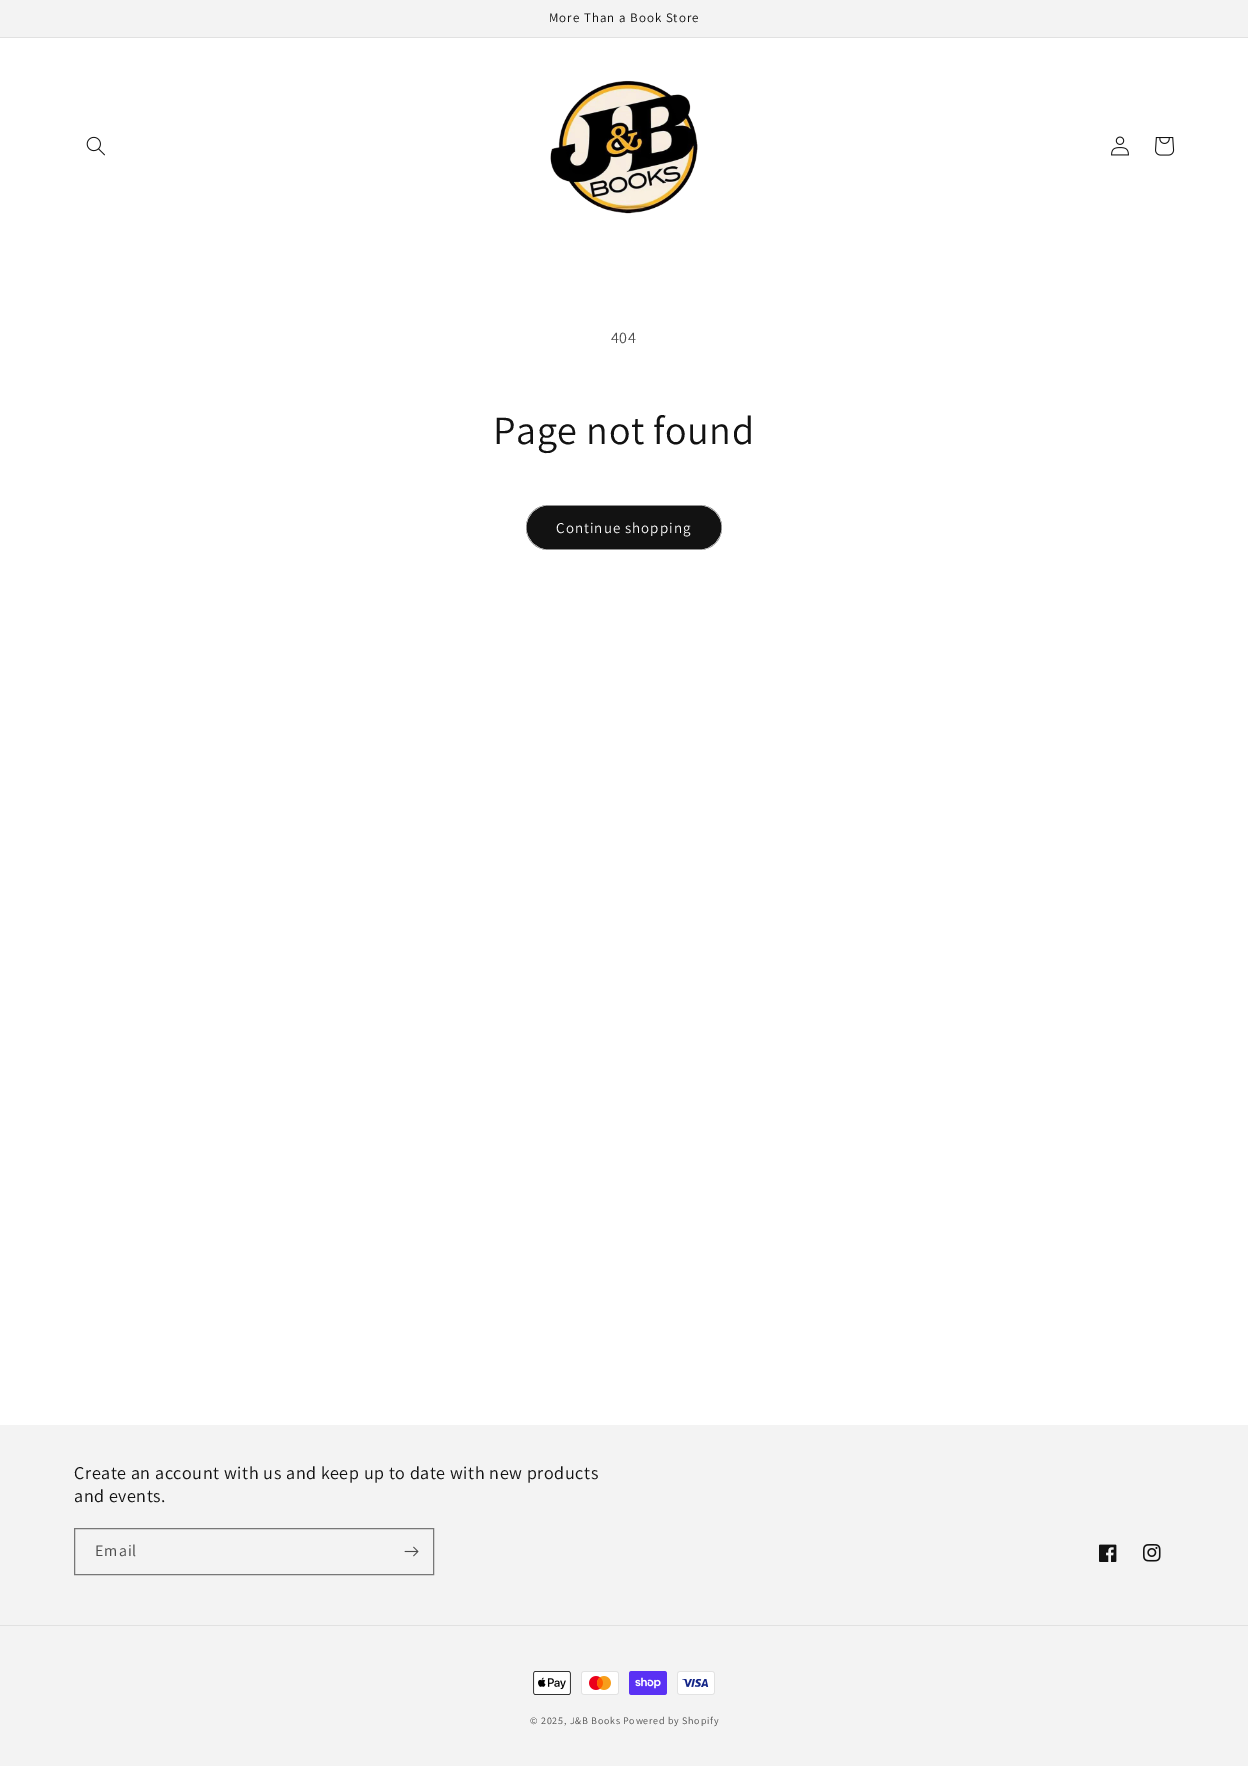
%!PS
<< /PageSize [1248 1766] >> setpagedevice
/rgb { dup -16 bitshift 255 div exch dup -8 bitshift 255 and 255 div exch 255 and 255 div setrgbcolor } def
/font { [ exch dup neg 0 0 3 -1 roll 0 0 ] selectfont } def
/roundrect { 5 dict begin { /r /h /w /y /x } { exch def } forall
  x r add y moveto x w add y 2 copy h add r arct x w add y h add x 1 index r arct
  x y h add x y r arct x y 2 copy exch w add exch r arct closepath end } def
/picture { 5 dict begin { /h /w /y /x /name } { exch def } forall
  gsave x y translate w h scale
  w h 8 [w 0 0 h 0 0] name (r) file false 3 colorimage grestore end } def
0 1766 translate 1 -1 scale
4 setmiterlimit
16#FFFFFF rgb
0 0 1248 1766 rectfill
16#F3F3F3 rgb
0 0 1248 37 rectfill
16#E1E1E1 rgb
0 37 1248 1 rectfill
/Assistant-Regular 13 font
16#121212 rgb
549 22 moveto 1 0 (More Than a Book Store) ashow
(pic1.raw) 86 136 19 20 picture
(pic2.raw) 550 80 148 134 picture
(pic3.raw) 1111 136 18 20 picture
(pic4.raw) 1155 137 20 19 picture
/Assistant-Regular 16 font
16#4D4D4D rgb
611 343 moveto 0.6 0 (404) ashow
/Assistant-Regular 40 font
16#121212 rgb
493 444 moveto 0.6 0 (Page not found) ashow
526 505 196 45 22.5 roundrect fill
16#FFFFFF rgb
0.3 setlinewidth
526.15 505.15 195.7 44.7 22.35 roundrect stroke
/Assistant-Regular 15 font
556 533 moveto 1 0 (Continue shopping) ashow
16#F3F3F3 rgb
0 1425 1248 341 rectfill
/Assistant-Regular 18 font
16#121212 rgb
74 1479 moveto 0.6 0 (Create an account with us and keep up to date with new products) ashow
74 1502 moveto 0.6 0 (and events.) ashow
16#777777 rgb
1 setlinewidth
74.5 1528.5 359 46 rectstroke
/Assistant-Regular 16 font
16#4D4D4D rgb
95 1556 moveto 1 0 (Email) ashow
(pic5.raw) 404 1546 15 11 picture
(pic6.raw) 1099 1544 18 18 picture
(pic7.raw) 1143 1544 18 18 picture
16#E1E1E1 rgb
0 1625 1248 1 rectfill
(pic8.raw) 533 1671 38 24 picture
(pic9.raw) 581 1671 38 24 picture
(pic10.raw) 629 1671 38 24 picture
(pic11.raw) 677 1671 38 24 picture
/Assistant-Regular 10 font
16#4D4D4D rgb
530 1724 moveto 0.75 0 (© 2025, J&B Books) ashow
623 1724 moveto 0.75 0 (Powered by Shopify) ashow
showpage
